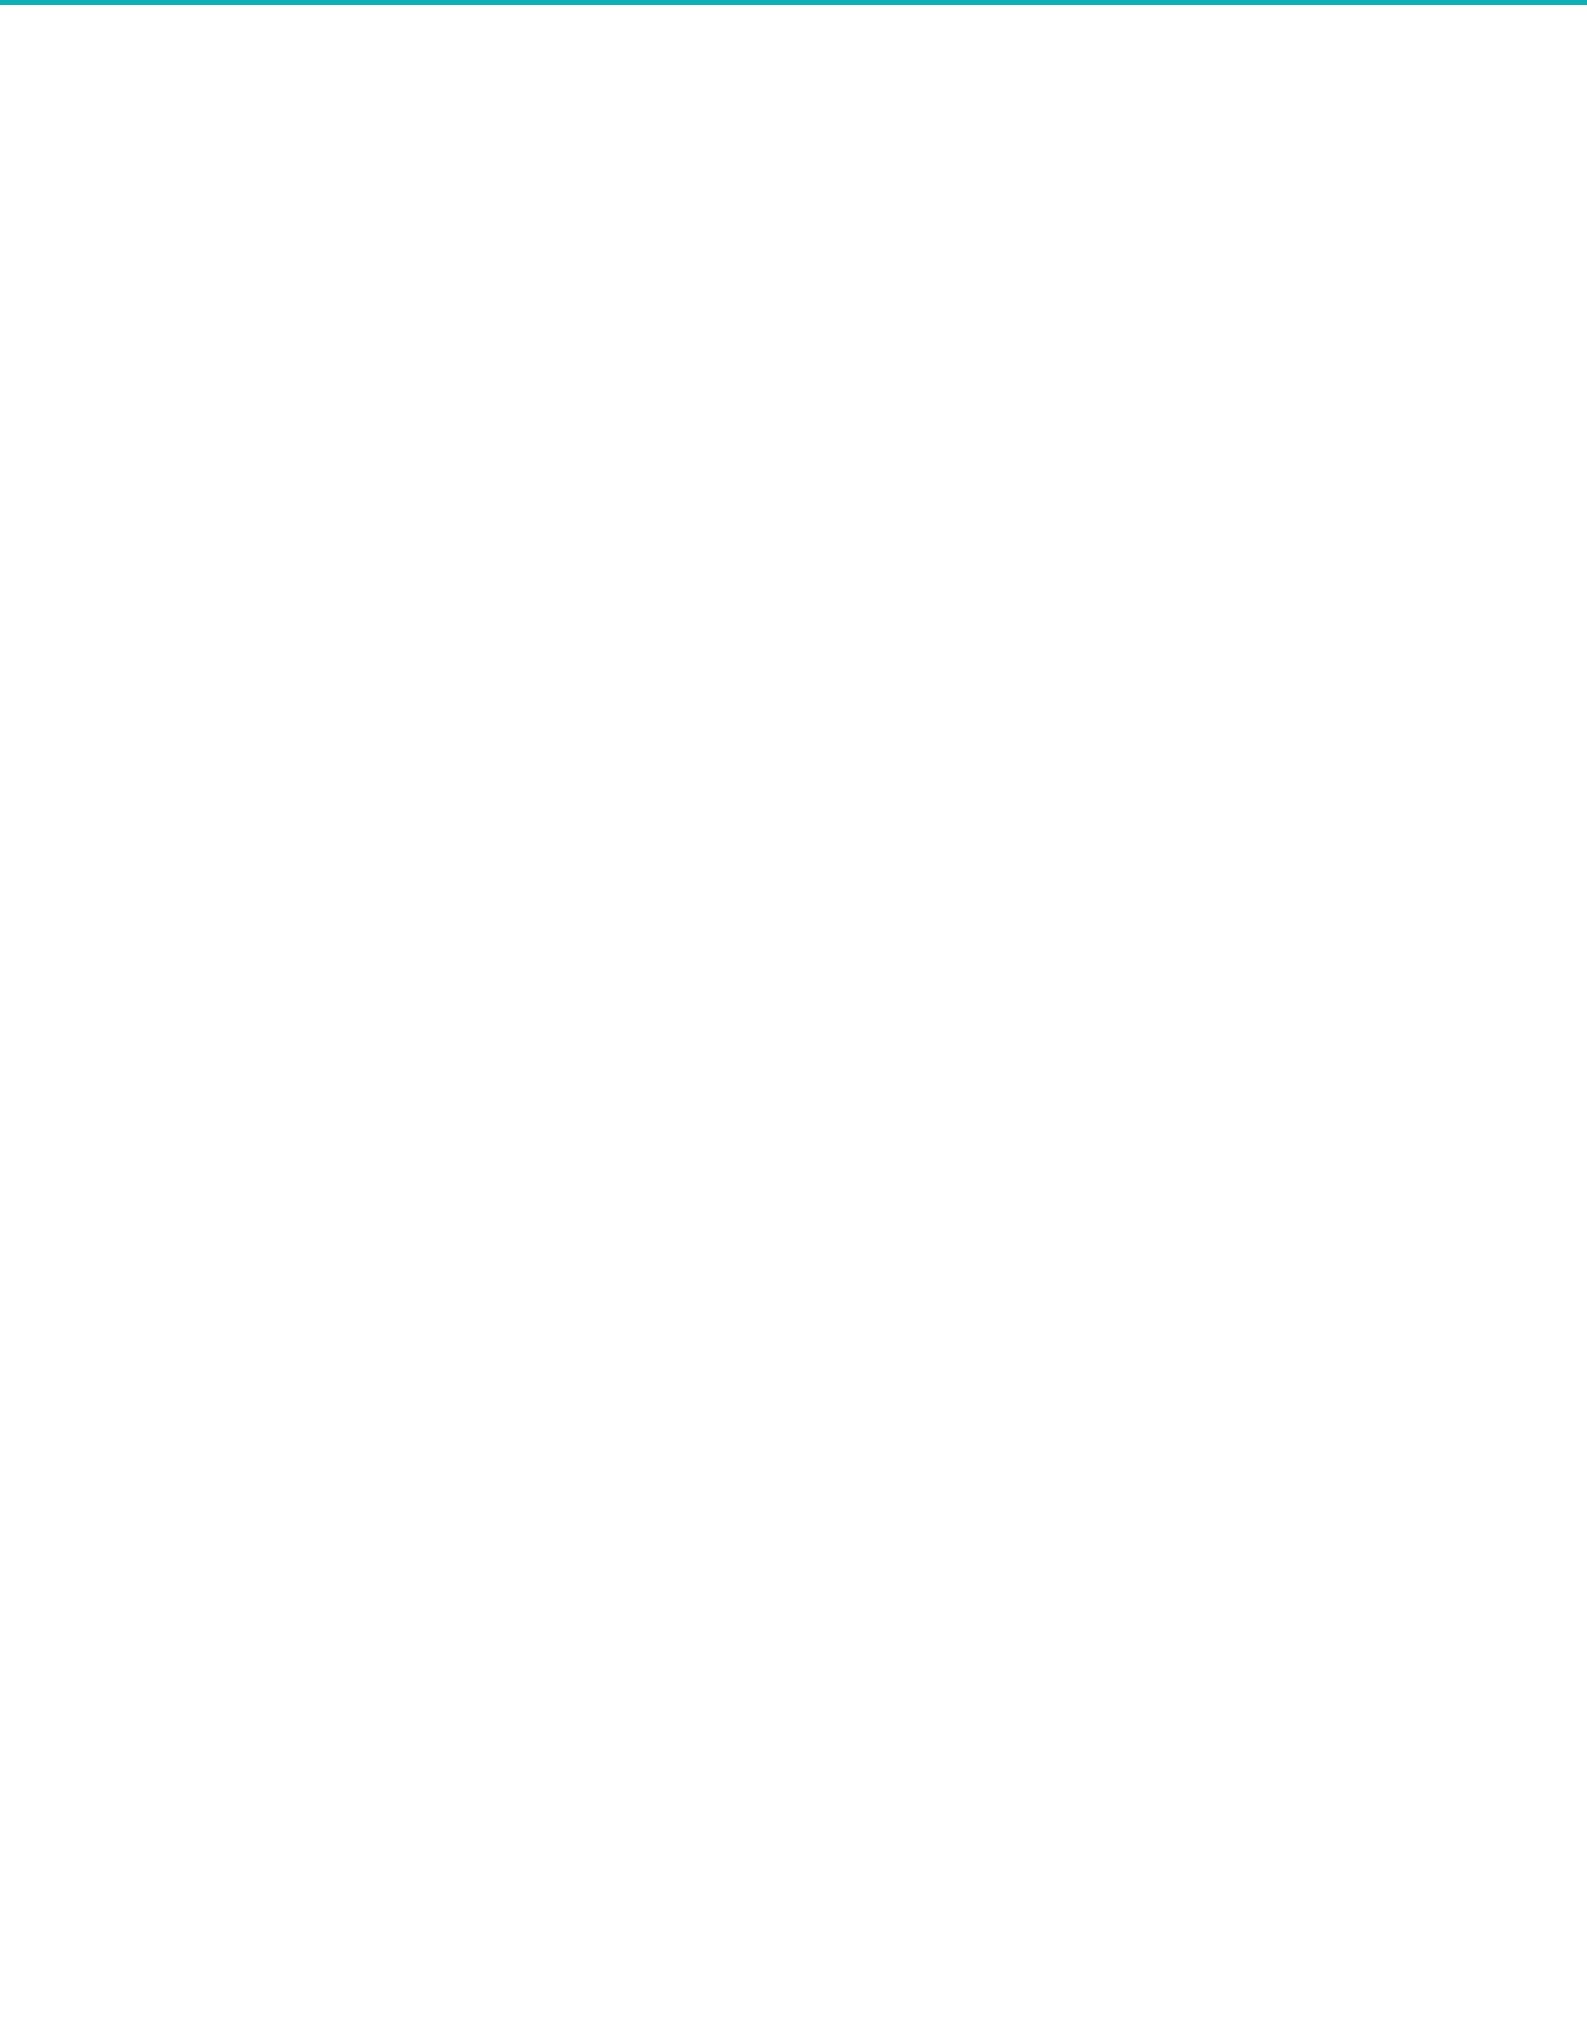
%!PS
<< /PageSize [1587 2035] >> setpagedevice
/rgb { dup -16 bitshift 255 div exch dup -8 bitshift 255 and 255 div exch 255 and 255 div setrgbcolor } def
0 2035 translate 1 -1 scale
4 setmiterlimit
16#FFFFFF rgb
0 0 1587 2035 rectfill
16#10B0B8 rgb
0 0 1587 5 rectfill
showpage
